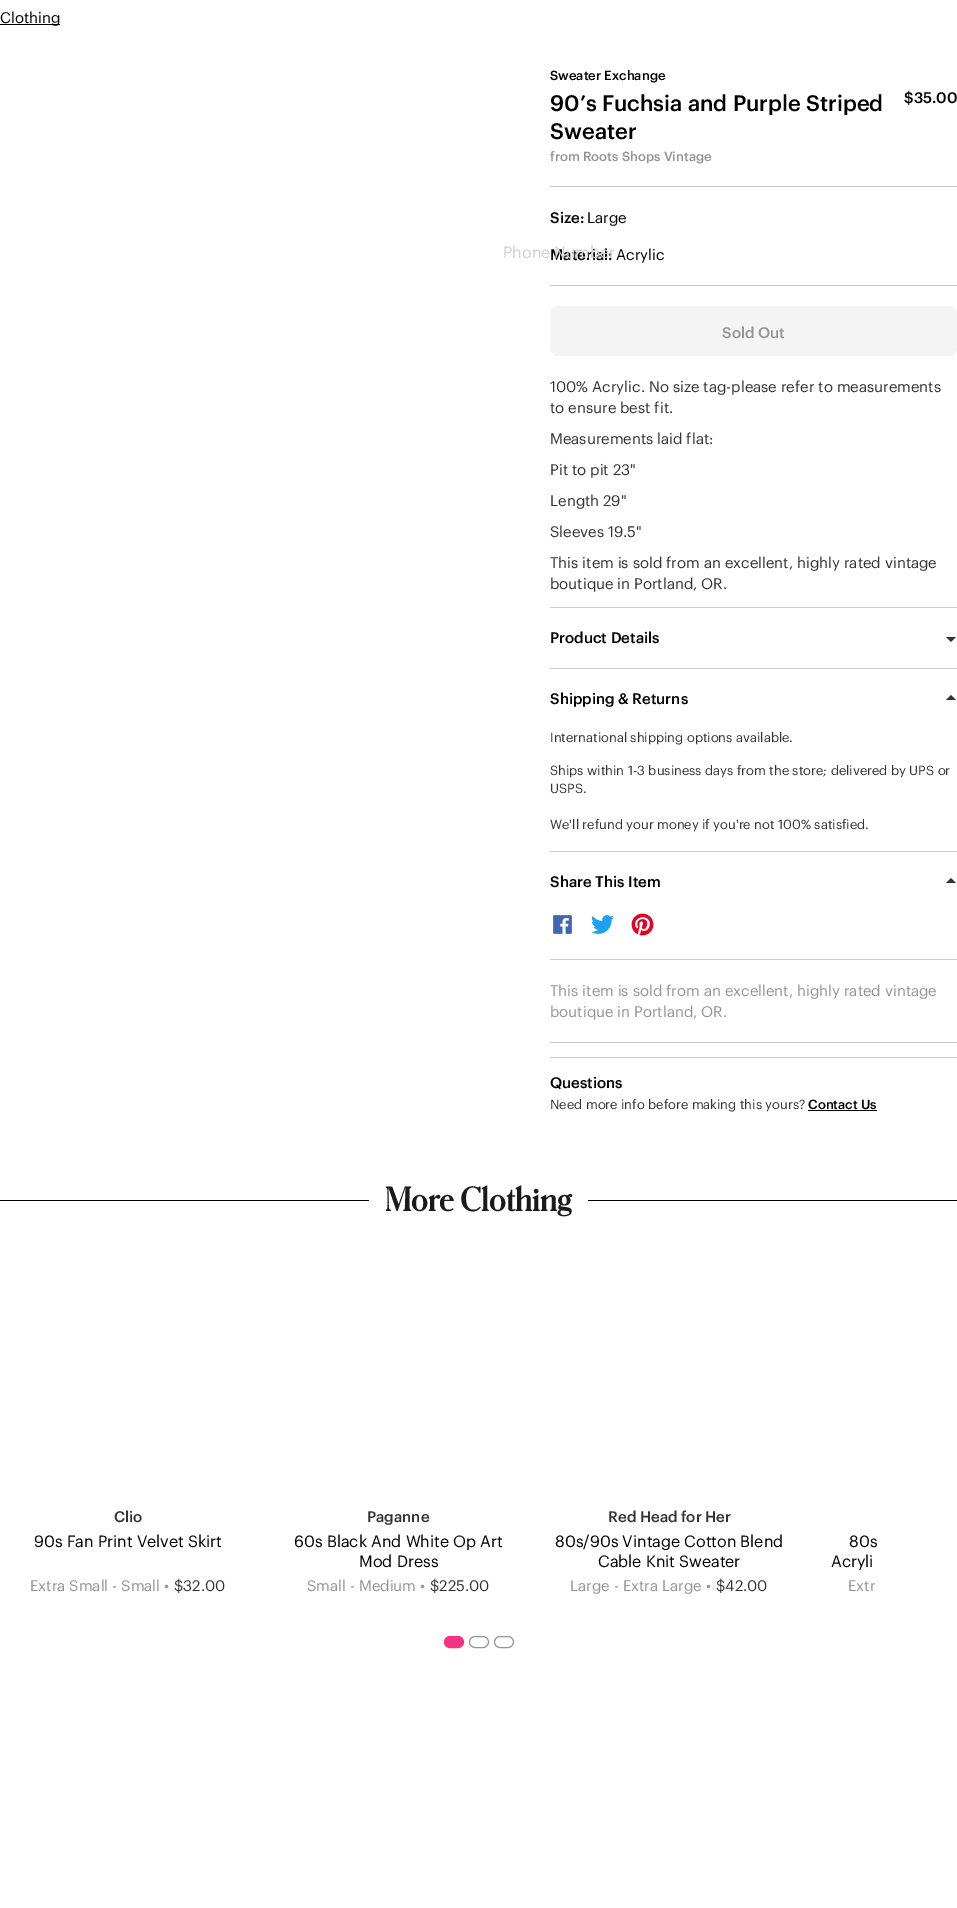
%!PS
<< /PageSize [957 1908] >> setpagedevice
/rgb { dup -16 bitshift 255 div exch dup -8 bitshift 255 and 255 div exch 255 and 255 div setrgbcolor } def
/font { [ exch dup neg 0 0 3 -1 roll 0 0 ] selectfont } def
/text { moveto show } def
/roundrect { 5 dict begin { /r /h /w /y /x } { exch def } forall
  x r add y moveto x w add y 2 copy h add r arct x w add y h add x 1 index r arct
  x y h add x y r arct x y 2 copy exch w add exch r arct closepath end } def
/picture { 5 dict begin { /h /w /y /x /name } { exch def } forall
  gsave x y translate w h scale
  w h 8 [w 0 0 h 0 0] name (r) file false 3 colorimage grestore end } def
0 1908 translate 1 -1 scale
4 setmiterlimit
/s1 { /Graphik-Regular 15 font 16#000000 rgb } def
/s2 { /Graphik-Medium 13 font 16#000000 rgb } def
/s3 { /Graphik-Medium 22 font 16#000000 rgb } def
/s4 { /Graphik-Medium 15 font 16#000000 rgb } def
/s5 { /Graphik-Medium 13 font 16#949493 rgb } def
/s6 { /Graphik-Medium 15 font 16#949493 rgb } def
/s7 { /Graphik-Regular 15 font 16#333333 rgb } def
/s8 { /Graphik-Regular 13 font 16#333333 rgb } def
/s9 { /Graphik-Regular 15 font 16#949493 rgb } def
/s10 { /Graphik-Regular 16 font 16#D0D0D0 rgb } def
/s11 { /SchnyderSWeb-Bold 31.5 font 16#1A1A1A rgb } def
/s12 { /Graphik-Medium 15 font 16#333333 rgb } def
/s13 { /Graphik-Regular 16 font 16#000000 rgb } def
16#FFFFFF rgb
0 0 957 1908 rectfill
16#000000 rgb
0 24 60 1 rectfill
s1
(Clothing) 0 23 text
s2
(Sweater Exchange) 550 80 text
s3
(90’s Fuchsia and Purple Striped) 550 111 text
(Sweater) 550 139 text
s4
($35.00) 904 103 text
s5
(from Roots Shops Vintage) 550 161 text
16#CBCBCB rgb
550 186 407 1 rectfill
550 285 407 1 rectfill
s4
(Size:) 550 223 text
s1
(Large) 587 223 text
s4
(Material:) 550 260 text
s1
(Acrylic) 616 260 text
16#F4F4F4 rgb
550 306 407 50 8 roundrect fill
s6
(Sold Out) 722 338 text
s7
(100% Acrylic. No size tag-please refer to measurements) 550 392 text
(to ensure best fit.) 550 413 text
(Measurements laid flat:) 550 444 text
(Pit to pit 23") 550 475 text
(Length 29") 550 506 text
(Sleeves 19.5") 550 537 text
(This item is sold from an excellent, highly rated vintage) 550 568 text
(boutique in Portland, OR.) 550 589 text
16#CBCBCB rgb
550 607 407 1 rectfill
s4
(Product Details) 550 643 text
16#333333 rgb
956 637 moveto 951 642 lineto 946 637 lineto closepath eofill
16#CBCBCB rgb
550 668 407 1 rectfill
s4
(Shipping & Returns) 550 704 text
16#333333 rgb
946 700 moveto 951 695 lineto 956 700 lineto closepath eofill
s8
(International shipping options available.) 550 742 text
(Ships within 1-3 business days from the store; delivered by UPS or) 550 775 text
(USPS.) 550 793 text
(We'll refund your money if you're not 100% satisfied.) 550 829 text
16#CBCBCB rgb
550 851 407 1 rectfill
s4
(Share This Item) 550 887 text
16#333333 rgb
946 883 moveto 951 878 lineto 956 883 lineto closepath eofill
(pic1.raw) 553 915 19 19 picture
(pic2.raw) 591 915 23 19 picture
(pic3.raw) 631 913 23 23 picture
16#CBCBCB rgb
550 959 407 1 rectfill
s9
(This item is sold from an excellent, highly rated vintage) 550 996 text
(boutique in Portland, OR.) 550 1017 text
16#CBCBCB rgb
550 1042 407 1 rectfill
550 1057 407 1 rectfill
s4
(Questions) 550 1088 text
s8
(Need more info before making this yours?) 550 1109 text
s2
(Contact Us) 808 1109 text
808 1110 69 1 rectfill
s10
(Phone Number) 503 258 text
16#000000 rgb
0 1200 957 1 rectfill
16#FFFFFF rgb
369 1200 219 1 rectfill
s11
(More Clothing) 385 1211 text
s12
(Clio) 114 1522 text
s13
(90s Fan Print Velvet Skirt) 34 1547 text
s9
(Extra Small - Small •) 30 1591 text
s7
($32.00) 174 1591 text
s12
(Paganne) 367 1522 text
s13
(60s Black And White Op Art) 294 1547 text
(Mod Dress) 359 1567 text
s9
(Small - Medium •) 307 1591 text
s7
($225.00) 430 1591 text
s12
(Red Head for Her) 608 1522 text
s13
(80s/90s Vintage Cotton Blend) 555 1547 text
(Cable Knit Sweater) 598 1567 text
s9
(Large - Extra Large •) 570 1591 text
s7
($42.00) 716 1591 text
s13
(80s) 849 1547 text
(Acryli) 831 1567 text
s9
(Extr) 848 1591 text
16#F73284 rgb
444.5 1636.5 19 11 5.5 roundrect gsave fill grestore
stroke
16#979797 rgb
469.5 1636.5 19 11 5.5 roundrect stroke
494.5 1636.5 19 11 5.5 roundrect stroke
showpage
